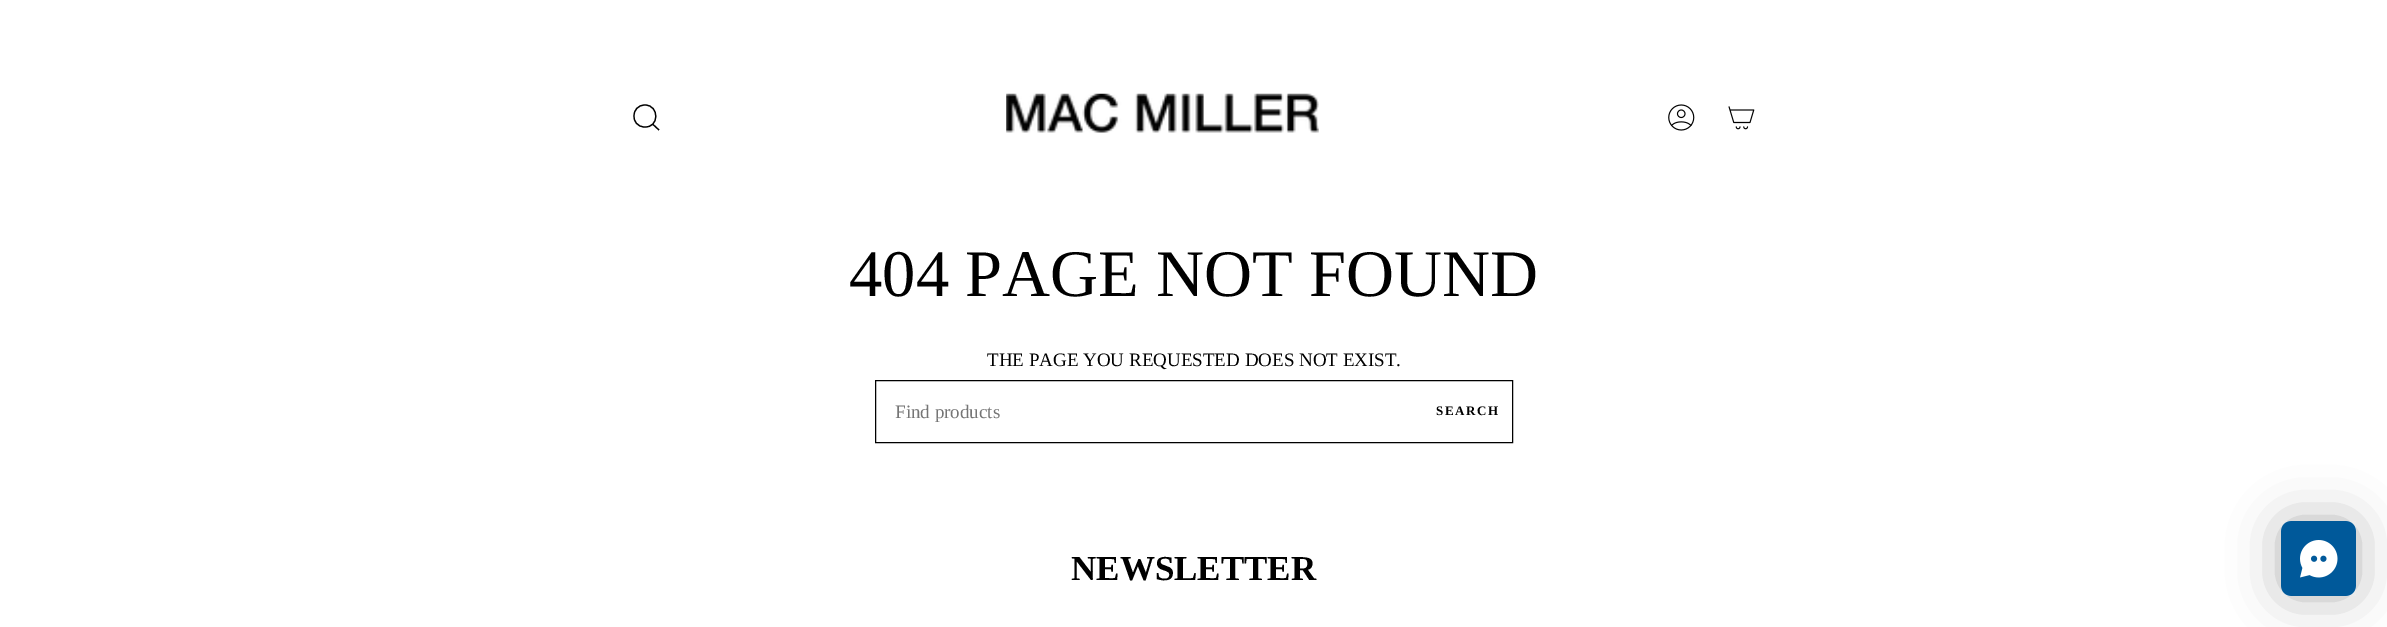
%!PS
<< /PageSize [2387 627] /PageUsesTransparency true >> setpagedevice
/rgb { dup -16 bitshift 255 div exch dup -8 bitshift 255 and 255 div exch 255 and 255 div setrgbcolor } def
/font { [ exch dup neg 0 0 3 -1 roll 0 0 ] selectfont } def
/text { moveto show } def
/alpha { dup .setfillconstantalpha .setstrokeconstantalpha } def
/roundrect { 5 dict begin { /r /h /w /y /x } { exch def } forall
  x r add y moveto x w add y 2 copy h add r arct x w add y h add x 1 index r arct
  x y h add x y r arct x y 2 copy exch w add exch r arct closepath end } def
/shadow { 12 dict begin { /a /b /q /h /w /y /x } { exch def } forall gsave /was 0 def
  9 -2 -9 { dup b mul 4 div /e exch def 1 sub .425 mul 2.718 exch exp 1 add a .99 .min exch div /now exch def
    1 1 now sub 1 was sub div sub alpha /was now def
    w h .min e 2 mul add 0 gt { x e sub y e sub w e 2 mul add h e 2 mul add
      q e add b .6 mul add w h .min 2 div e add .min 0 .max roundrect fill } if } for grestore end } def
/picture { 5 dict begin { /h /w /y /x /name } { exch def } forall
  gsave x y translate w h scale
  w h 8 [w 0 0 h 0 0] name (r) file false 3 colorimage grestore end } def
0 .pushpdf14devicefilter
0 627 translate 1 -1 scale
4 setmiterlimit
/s1 { /LiberationSerif-Regular 66.5 font 16#000000 rgb } def
/s2 { /LiberationSerif-Regular 19 font 16#000000 rgb } def
/s3 { /LiberationSerif-Regular 19 font 16#757575 rgb } def
/s4 { /LiberationSerif-Bold 35 font 16#000000 rgb } def
16#FFFFFF rgb
0 0 2387 627 rectfill
16#000000 rgb
1.2 setlinewidth
645 105 moveto 659.5 105 659.5 128 644.5 127 curveto 630 126.5 630.5 105 645 105 curveto closepath 652.5 124 moveto 659 130 lineto stroke
(pic1.raw) 1006 93 313 40 picture
(pic2.raw) 1668 104 27 27 picture
(pic3.raw) 1728 106 27 24 picture
s1
(404 PAGE NOT FOUND) 849 296 text
s2
(THE PAGE YOU REQUESTED DOES NOT EXIST.) 987 366 text
1 setlinewidth
875.5 380.5 637 62 rectstroke
s3
(Find products) 895 418 text
/LiberationSerif-Bold 13 font
16#000000 rgb
1436 415 moveto 1.5 0 (SEARCH) ashow
s4
(NEWSLETTER) 1071 580 text
2281 521 75 75 10 25 0.3 shadow
(pic4.raw) 2281 521 75 75 picture
.poppdf14devicefilter showpage
